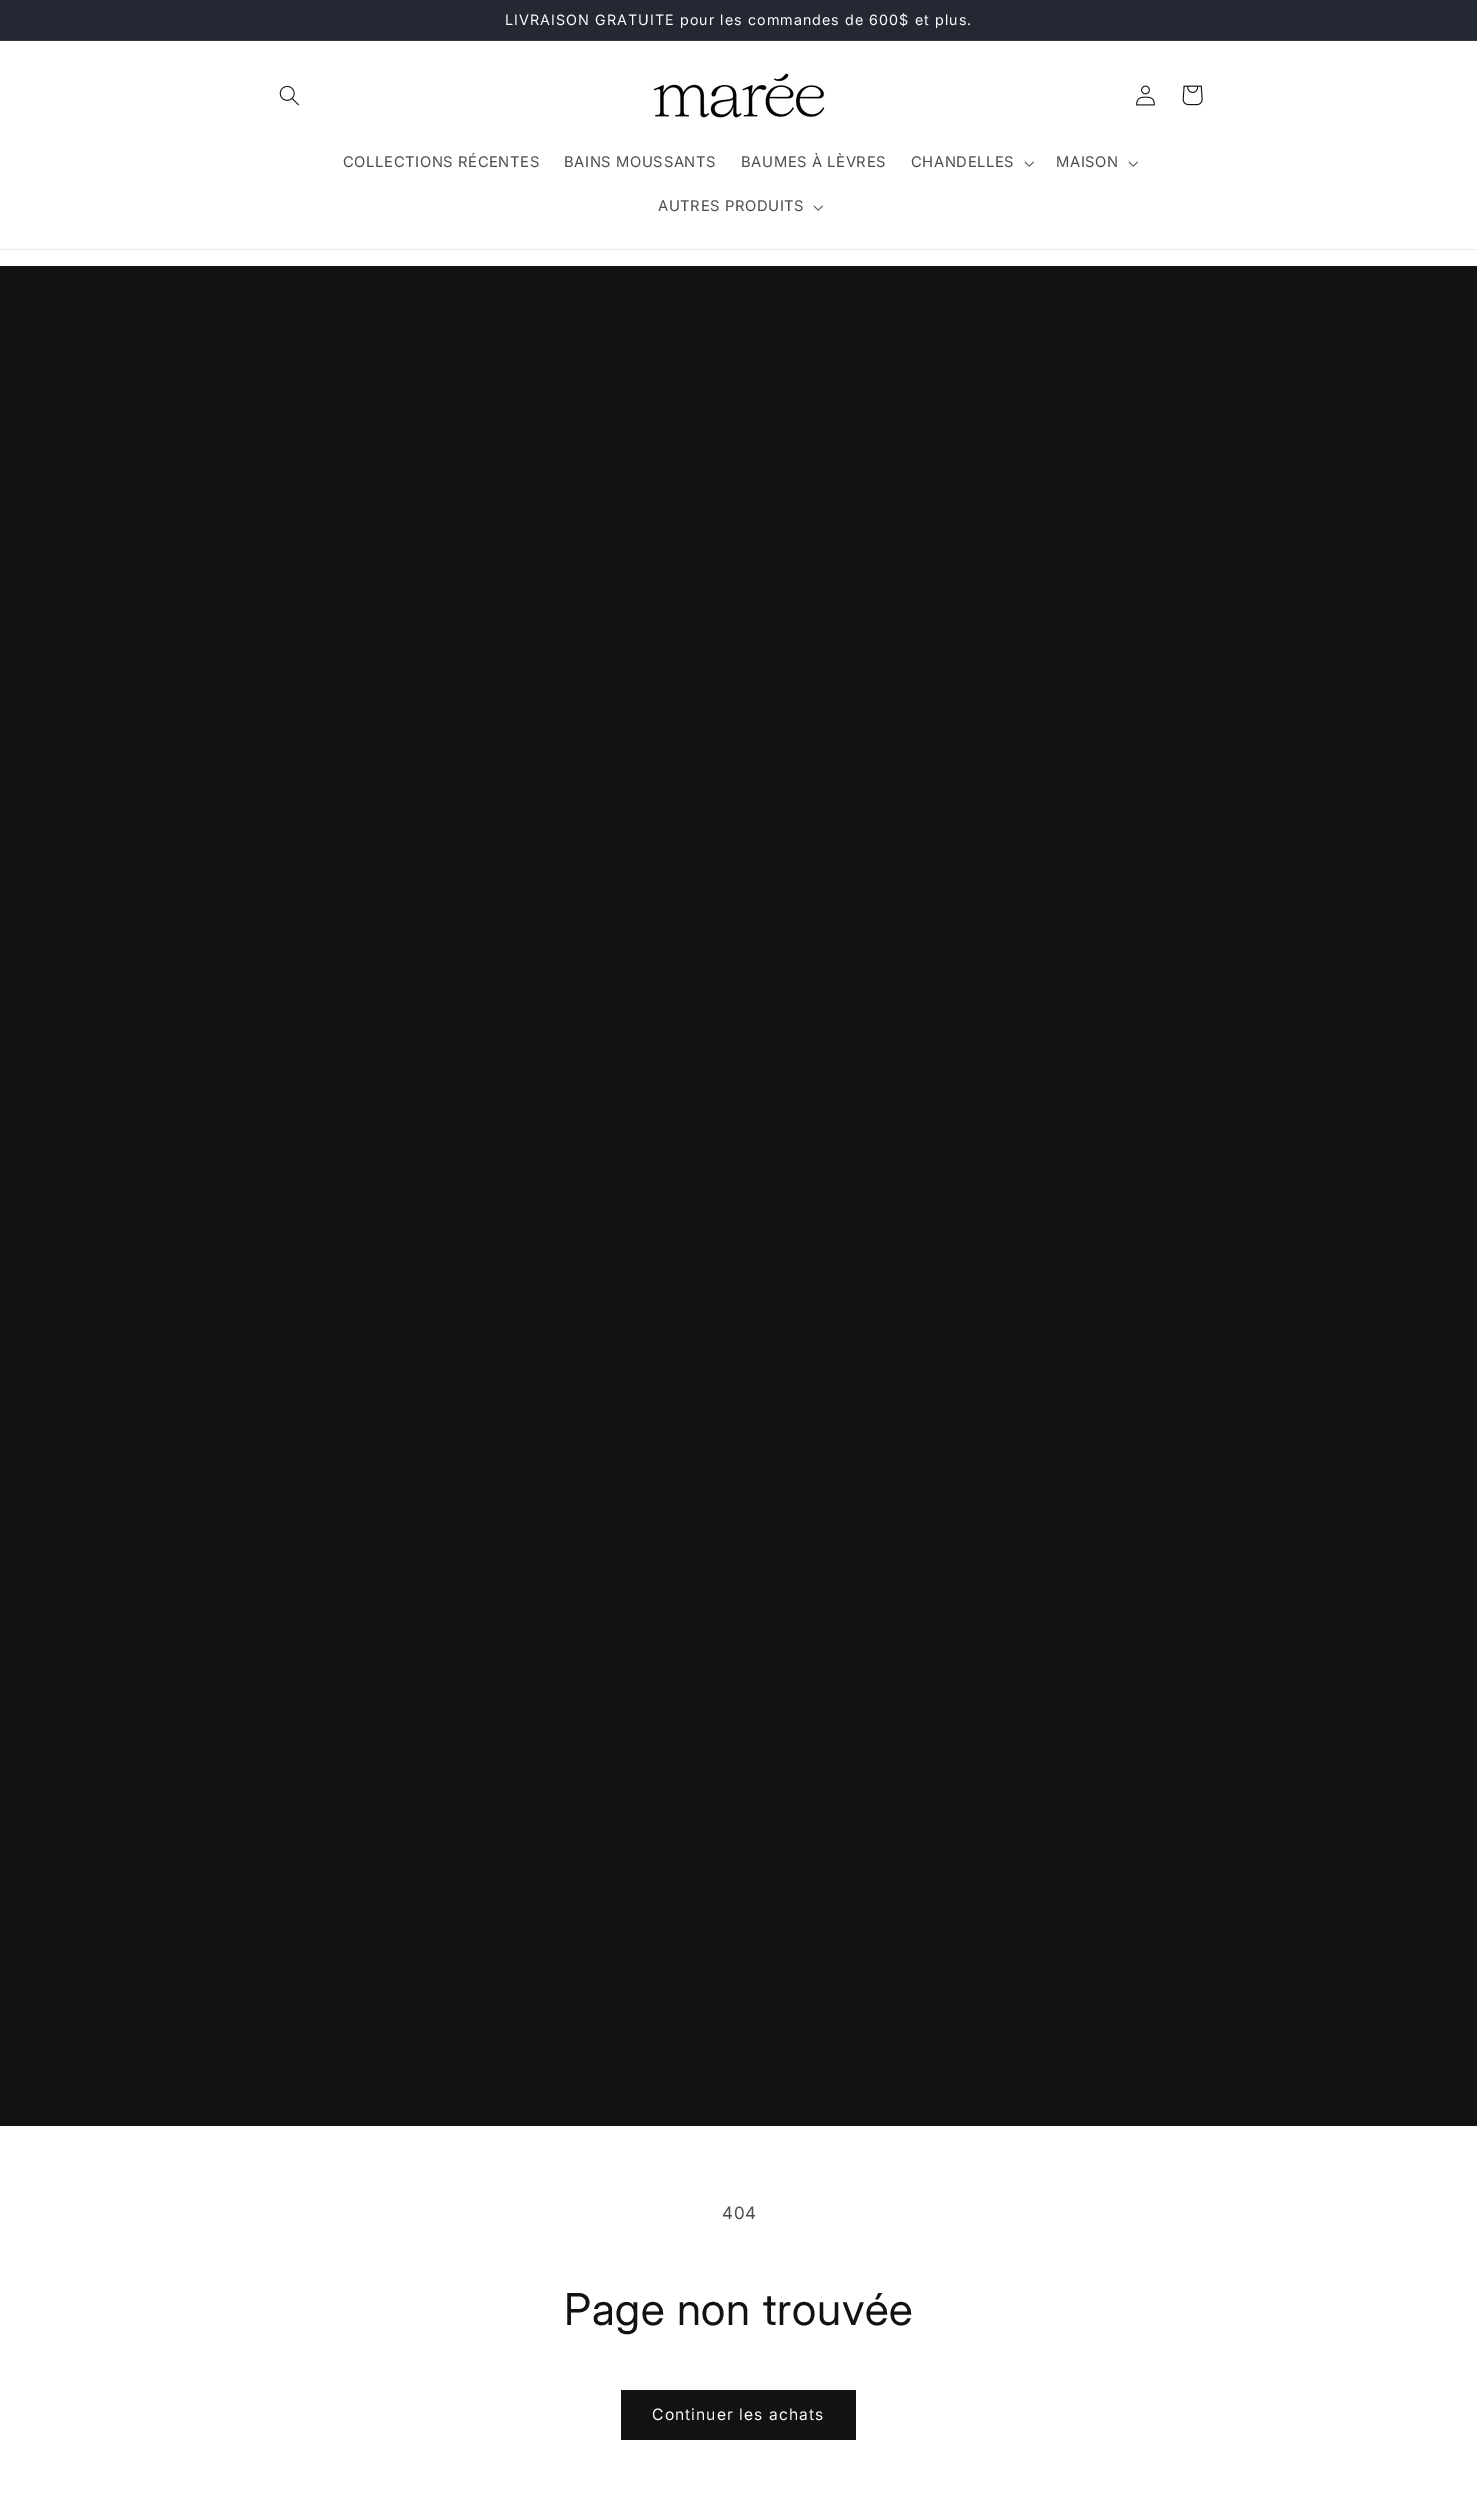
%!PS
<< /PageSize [1477 2513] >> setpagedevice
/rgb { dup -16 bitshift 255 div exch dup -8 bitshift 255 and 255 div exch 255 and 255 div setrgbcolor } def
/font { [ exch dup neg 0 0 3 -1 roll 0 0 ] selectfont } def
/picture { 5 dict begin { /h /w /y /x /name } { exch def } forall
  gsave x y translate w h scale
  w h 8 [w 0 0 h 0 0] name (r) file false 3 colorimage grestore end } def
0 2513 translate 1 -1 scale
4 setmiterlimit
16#FFFFFF rgb
0 0 1477 2513 rectfill
16#242833 rgb
0 0 1477 40 rectfill
16#363943 rgb
0 40 1477 1 rectfill
/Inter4-Regular 14.3 font
16#FFFFFF rgb
505 25 moveto 1.05 0 (LIVRAISON GRATUITE pour les commandes de 600$ et plus.) ashow
16#ECECEC rgb
0 249 1477 1 rectfill
(pic1.raw) 279 85 20 21 picture
(pic2.raw) 653 73 172 47 picture
(pic3.raw) 1136 85 19 21 picture
(pic4.raw) 1182 85 21 21 picture
/Inter4-Regular 14.75 font
16#4D4D4D rgb
343 167 moveto 0.6 0 (COLLECTIONS RÉCENTES) ashow
564 167 moveto 0.6 0 (BAINS MOUSSANTS) ashow
741 167 moveto 0.6 0 (BAUMES À LÈVRES) ashow
911 167 moveto 0.6 0 (CHANDELLES) ashow
(pic5.raw) 1024 161 10 6 picture
1056 167 moveto 0.6 0 (MAISON) ashow
(pic5.raw) 1128 161 10 6 picture
658 211 moveto 0.6 0 (AUTRES PRODUITS) ashow
(pic5.raw) 813 205 10 6 picture
16#121212 rgb
0 266 1477 1860 rectfill
/Inter-Regular 17 font
16#4D4D4D rgb
722 2219 moveto 0.6 0 (404) ashow
/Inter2-Regular 44 font
16#121212 rgb
564 2325 moveto 0.7 0 (Page non trouvée) ashow
621 2390 235 50 rectfill
/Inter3-Regular 15.75 font
16#FFFFFF rgb
652 2420 moveto 1.05 0 (Continuer les achats) ashow
showpage
